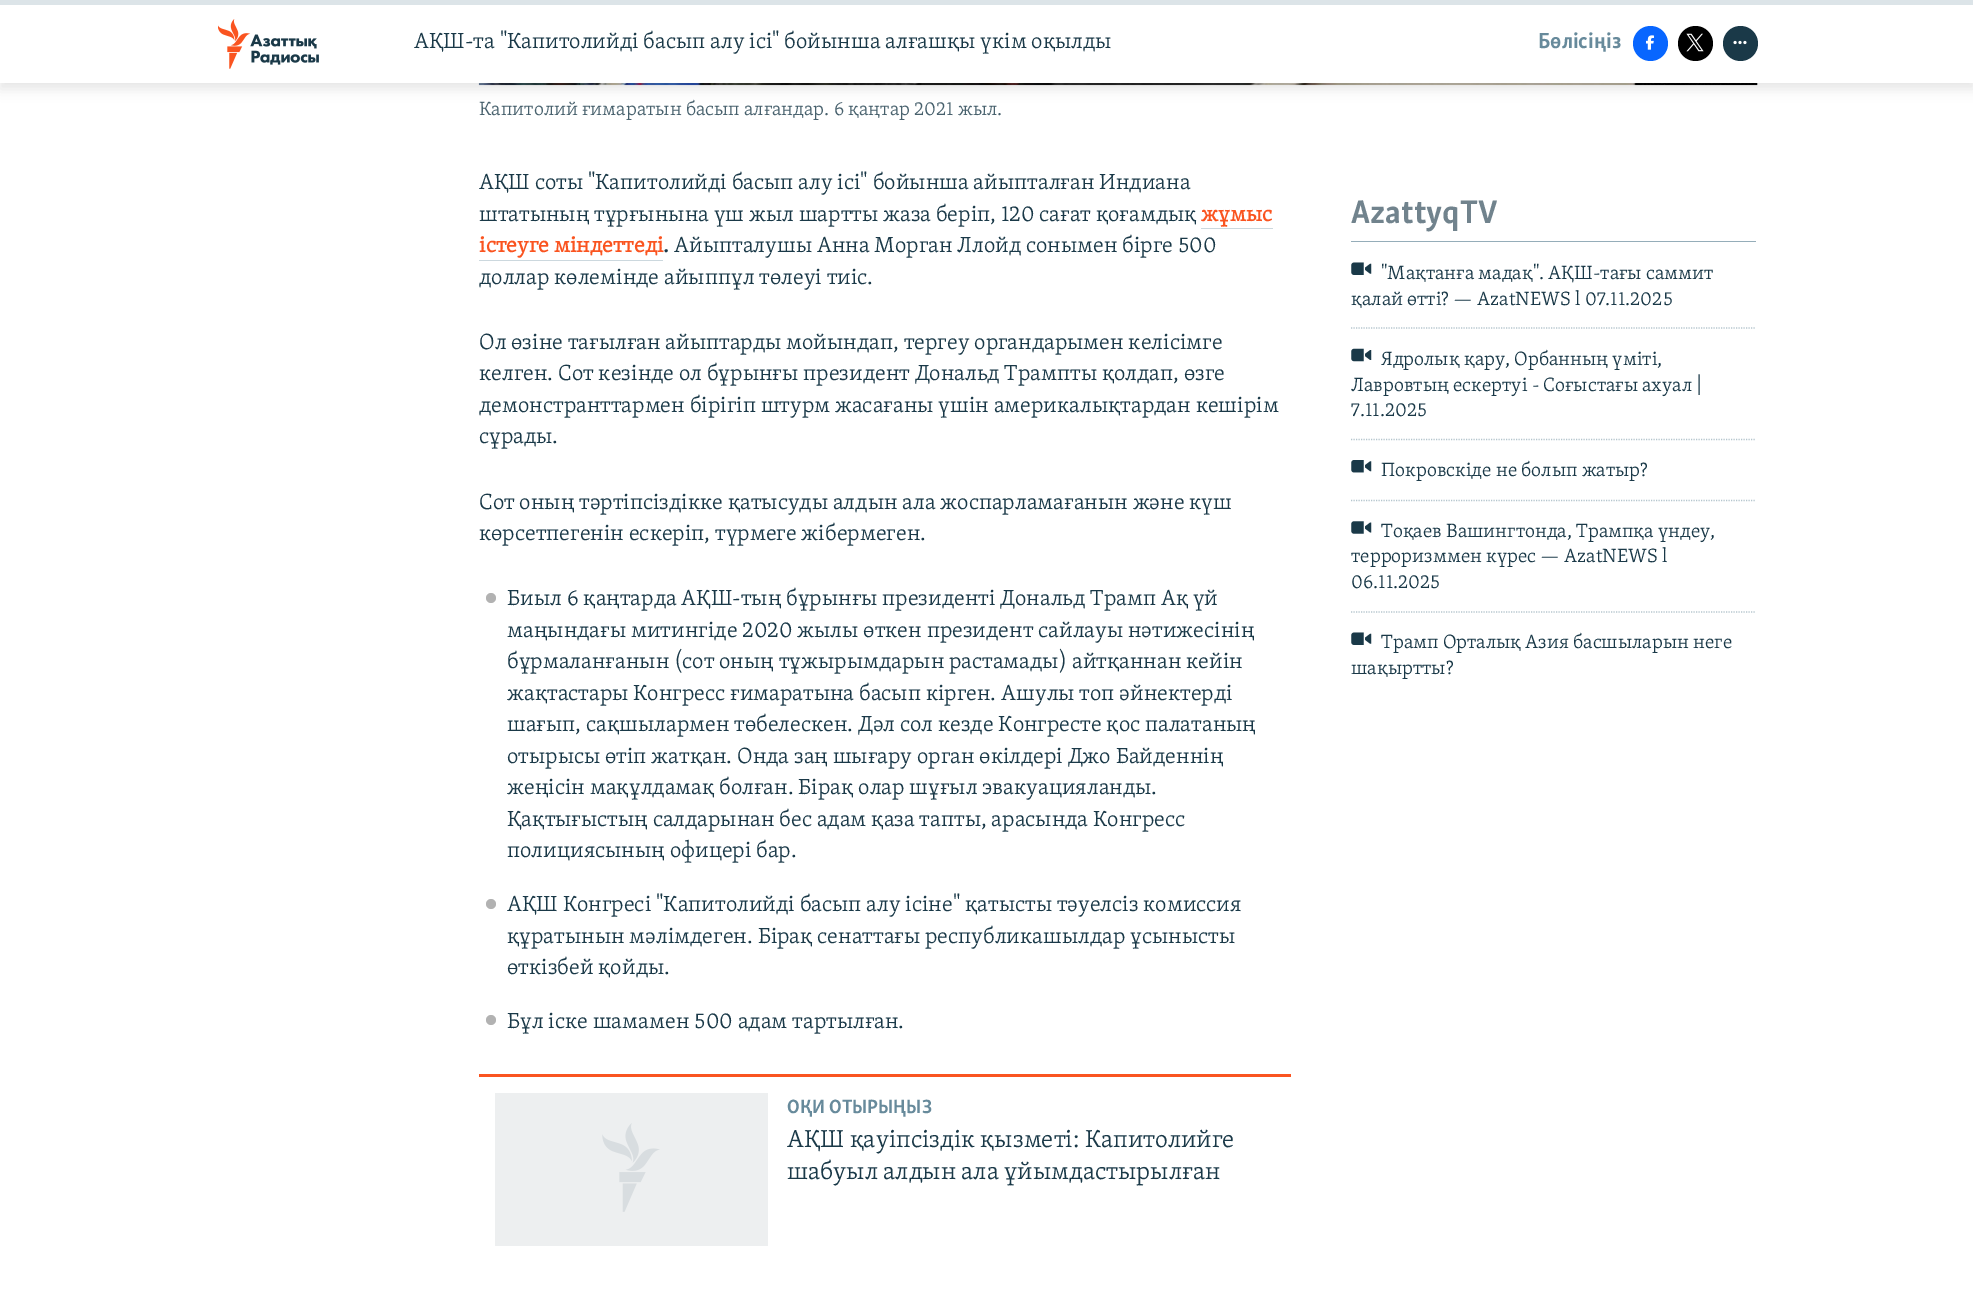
%!PS
<< /PageSize [1973 1314] /PageUsesTransparency true >> setpagedevice
/rgb { dup -16 bitshift 255 div exch dup -8 bitshift 255 and 255 div exch 255 and 255 div setrgbcolor } def
/font { [ exch dup neg 0 0 3 -1 roll 0 0 ] selectfont } def
/text { moveto show } def
/alpha { dup .setfillconstantalpha .setstrokeconstantalpha } def
/circle { newpath 0 360 arc closepath } def
/roundrect { 5 dict begin { /r /h /w /y /x } { exch def } forall
  x r add y moveto x w add y 2 copy h add r arct x w add y h add x 1 index r arct
  x y h add x y r arct x y 2 copy exch w add exch r arct closepath end } def
/shadow { 12 dict begin { /a /b /q /h /w /y /x } { exch def } forall gsave /was 0 def
  9 -2 -9 { dup b mul 4 div /e exch def 1 sub .425 mul 2.718 exch exp 1 add a .99 .min exch div /now exch def
    1 1 now sub 1 was sub div sub alpha /was now def
    w h .min e 2 mul add 0 gt { x e sub y e sub w e 2 mul add h e 2 mul add
      q e add b .6 mul add w h .min 2 div e add .min 0 .max roundrect fill } if } for grestore end } def
/picture { 5 dict begin { /h /w /y /x /name } { exch def } forall
  gsave x y translate w h scale
  w h 8 [w 0 0 h 0 0] name (r) file false 3 colorimage grestore end } def
0 .pushpdf14devicefilter
0 1314 translate 1 -1 scale
4 setmiterlimit
/s1 { /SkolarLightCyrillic-Light 22.5 font 16#1A3948 rgb } def
/s2 { /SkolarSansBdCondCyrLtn-Bold 22.5 font 16#678A9B rgb } def
/s3 { /SkolarLightCyrillic-Light 19.7 font 16#48616D rgb } def
/s4 { /SkolarLightCyrillic-Bold 22.5 font 16#FA5420 rgb } def
/s5 { /SkolarLightCyrillic-Bold 22.5 font 16#1A3948 rgb } def
/s6 { /SkolarSansBdCondCyrLtn-Bold 19.7 font 16#678A9B rgb } def
/s7 { /SkolarLightCyrillic-Light 25.3 font 16#1A3948 rgb } def
/s8 { /SkolarSansBdCondCyrLtn-Bold 33.75 font 16#71838D rgb } def
/s9 { /SkolarLightCyrillic-Light 19.7 font 16#1A3948 rgb } def
16#FFFFFF rgb
0 0 1973 1314 rectfill
16#EDEFF0 rgb
1757 83 1 2 rectfill
(pic5.raw) 478 83 1280 3 picture
16#000000 rgb
0 6 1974 83 0 6 0.1 shadow
16#FFFFFF rgb
0 5 1973 78 rectfill
16#DCE4E8 rgb
0 0 1973 5 rectfill
(pic1.raw) 218 19 101 50 picture
s1
(АҚШ-та "Капитолийді басып алу ісі" бойынша алғашқы үкім оқылды) 414 48 text
s2
(Бөлісіңіз) 1538 48 text
16#0866FF rgb
1650.5 43.5 17.5 circle fill
(pic2.raw) 1646 35 8 15 picture
16#000000 rgb
1695.5 43.5 17.5 circle fill
(pic3.raw) 1686 33 18 19 picture
16#1A3948 rgb
1740.5 43.5 17.5 circle fill
(pic4.raw) 1733 40 14 5 picture
s3
(Капитолий ғимаратын басып алғандар. 6 қаңтар 2021 жыл.) 479 115 text
s1
(АҚШ соты "Капитолийді басып алу ісі" бойынша айыпталған Индиана) 479 189 text
(штатының тұрғынына үш жыл шартты жаза беріп, 120 сағат қоғамдық) 479 221 text
s4
(жұмыс) 1201 221 text
16#CCD8DE rgb
1201 228 72 1 rectfill
s4
(істеуге міндеттеді) 479 252 text
s5
(.) 663 252 text
16#CCD8DE rgb
479 260 184 1 rectfill
s1
(Айыпталушы Анна Морган Ллойд сонымен бірге 500) 674 252 text
(доллар көлемінде айыппұл төлеуі тиіс.) 479 284 text
(Ол өзіне тағылған айыптарды мойындап, тергеу органдарымен келісімге) 479 349 text
(келген. Сот кезінде ол бұрынғы президент Дональд Трампты қолдап, өзге) 479 380 text
(демонстранттармен бірігіп штурм жасағаны үшін америкалықтардан кешірім) 479 412 text
(сұрады.) 479 443 text
(Сот оның тәртіпсіздікке қатысуды алдын ала жоспарламағанын және күш) 479 509 text
(көрсетпегенін ескеріп, түрмеге жібермеген.) 479 540 text
16#B2B2B2 rgb
491 598 5 circle fill
s1
(Биыл 6 қаңтарда АҚШ-тың бұрынғы президенті Дональд Трамп Ақ үй) 507 605 text
(маңындағы митингіде 2020 жылы өткен президент сайлауы нәтижесінің) 507 637 text
(бұрмаланғанын \(сот оның тұжырымдарын растамады\) айтқаннан кейін) 507 668 text
(жақтастары Конгресс ғимаратына басып кірген. Ашулы топ әйнектерді) 507 700 text
(шағып, сақшылармен төбелескен. Дәл сол кезде Конгресте қос палатаның) 507 731 text
(отырысы өтіп жатқан. Онда заң шығару орган өкілдері Джо Байденнің) 507 763 text
(жеңісін мақұлдамақ болған. Бірақ олар шұғыл эвакуацияланды.) 507 794 text
(Қақтығыстың салдарынан бес адам қаза тапты, арасында Конгресс) 507 826 text
(полициясының офицері бар.) 507 857 text
16#B2B2B2 rgb
491 904 5 circle fill
s1
(АҚШ Конгресі "Капитолийді басып алу ісіне" қатысты тәуелсіз комиссия) 507 911 text
(құратынын мәлімдеген. Бірақ сенаттағы республикашылдар ұсынысты) 507 943 text
(өткізбей қойды.) 507 974 text
16#B2B2B2 rgb
491 1020 5 circle fill
s1
(Бұл іске шамамен 500 адам тартылған.) 507 1028 text
16#FA5420 rgb
479 1074 812 3 rectfill
16#EDEFF0 rgb
495 1093 273 153 rectfill
(pic6.raw) 602 1123 58 89 picture
s6
(ОҚИ ОТЫРЫҢЫЗ) 787 1113 text
s7
(АҚШ қауіпсіздік қызметі: Капитолийге) 787 1147 text
(шабуыл алдын ала ұйымдастырылған) 787 1179 text
16#95ADB9 rgb
1351 241 405 1 rectfill
s8
(AzattyqTV) 1351 223 text
(pic7.raw) 1351 262 21 13 picture
s9
("Мақтанға мадақ". АҚШ-тағы саммит) 1381 279 text
(қалай өтті? — AzatNEWS l 07.11.2025) 1351 305 text
16#B4C5CD rgb
1.2 setlinewidth
[1.25 1.25] 0 setdash
1351 328 moveto 1756 328 lineto stroke
(pic8.raw) 1351 348 21 14 picture
s9
(Ядролық қару, Орбанның үміті,) 1381 365 text
(Лавровтың ескертуі - Соғыстағы ахуал |) 1351 391 text
(7.11.2025) 1351 416 text
16#B4C5CD rgb
1351 439.5 moveto 1756 439.5 lineto stroke
(pic9.raw) 1351 460 21 13 picture
s9
(Покровскіде не болып жатыр?) 1381 476 text
16#B4C5CD rgb
1351 500.5 moveto 1756 500.5 lineto stroke
(pic10.raw) 1351 521 21 13 picture
s9
(Тоқаев Вашингтонда, Трампқа үндеу,) 1381 537 text
(терроризммен күрес — AzatNEWS l) 1351 562 text
(06.11.2025) 1351 588 text
16#B4C5CD rgb
1351 612 moveto 1756 612 lineto stroke
(pic7.raw) 1351 632 21 13 picture
s9
(Трамп Орталық Азия басшыларын неге) 1381 648 text
(шақыртты?) 1351 674 text
.poppdf14devicefilter showpage
